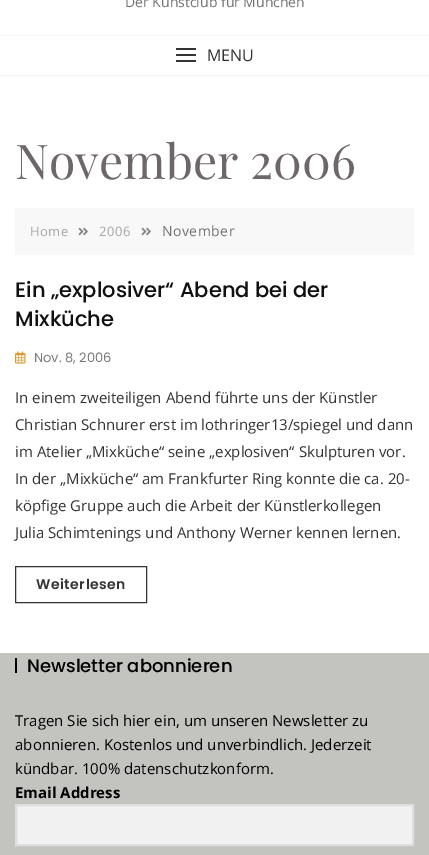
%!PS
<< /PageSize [429 855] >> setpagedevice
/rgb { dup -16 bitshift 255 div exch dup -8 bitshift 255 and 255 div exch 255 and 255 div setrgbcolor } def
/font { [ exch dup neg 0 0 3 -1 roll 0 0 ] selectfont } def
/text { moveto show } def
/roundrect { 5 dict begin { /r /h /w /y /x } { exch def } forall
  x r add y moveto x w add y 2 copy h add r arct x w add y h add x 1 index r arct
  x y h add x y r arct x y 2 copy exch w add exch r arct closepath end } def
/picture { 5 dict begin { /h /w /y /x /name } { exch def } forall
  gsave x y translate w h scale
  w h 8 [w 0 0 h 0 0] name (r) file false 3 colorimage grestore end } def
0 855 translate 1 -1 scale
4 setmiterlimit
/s1 { /OpenSans-Regular 14 font 16#717171 rgb } def
/s2 { /OpenSans-Regular 16 font 16#333333 rgb } def
/s3 { /PlayfairDisplay-Regular 48 font 16#6E6767 rgb } def
/s4 { /Poppins-Medium 21 font 16#101010 rgb } def
/s5 { /Poppins-Regular 13 font 16#7A7A7A rgb } def
/s6 { /OpenSans-Regular 15 font 16#333333 rgb } def
/s7 { /Poppins-Medium 18 font 16#000000 rgb } def
/s8 { /OpenSans-Regular 15 font 16#000000 rgb } def
/s9 { /OpenSans-Bold 15 font 16#000000 rgb } def
16#FFFFFF rgb
0 0 429 855 rectfill
16#F5F5F5 rgb
0 35 429 1 rectfill
s1
(Der Kunstclub für München) 125 7 text
16#333333 rgb
176 54 20 2 1 roundrect fill
176 48 20 2 rectfill
176 60 20 2 rectfill
s2
(MENU) 207 61 text
16#F2F2F2 rgb
0 75 429 1 rectfill
s3
(November 2006) 15 179 text
16#F8F8F8 rgb
15 208 399 47 rectfill
/OpenSans-Regular 13 font
16#A6A6A6 rgb
30 236 moveto 0.5 0 (Home) ashow
(pic1.raw) 78 227 10 9 picture
99 236 moveto 0.5 0 (2006) ashow
(pic1.raw) 141 227 10 9 picture
/OpenSans-Regular 14 font
16#717171 rgb
162 236 moveto 0.5 0 (November) ashow
s4
(Ein „explosiver“ Abend bei der) 15 297 text
(Mixküche) 15 326 text
(pic2.raw) 15 351 11 13 picture
s5
(Nov. 8, 2006) 34 362 text
s6
(In einem zweiteiligen Abend führte uns der Künstler) 15 403 text
(Christian Schnurer erst im lothringer13/spiegel und dann) 15 430 text
(im Atelier „Mixküche“ seine „explosiven“ Skulpturen vor.) 15 457 text
(In der „Mixküche“ am Frankfurter Ring konnte die ca. 20-) 15 484 text
(köpfige Gruppe auch die Arbeit der Künstlerkollegen) 15 511 text
(Julia Schimtenings und Anthony Werner kennen lernen.) 15 538 text
15.5 566.5 131 36 rectstroke
/Poppins-SemiBold 14 font
36 589 moveto 0.5 0 (Weiterlesen) ashow
16#C3C3BF rgb
0 653 429 202 rectfill
16#000000 rgb
15 658 2 15 rectfill
s7
(Newsletter abonnieren) 27 672 text
s8
(Tragen Sie sich hier ein, um unseren Newsletter zu) 15 726 text
(abonnieren. Kostenlos und unverbindlich. Jederzeit) 15 750 text
(kündbar. 100% datenschutzkonform.) 15 774 text
s9
(Email Address) 15 798 text
16#F1F1F1 rgb
16 805 moveto 413 805 lineto 413 845 lineto 16 845 lineto closepath gsave fill grestore
16#DEDEDE rgb
2 setlinewidth
stroke
showpage
